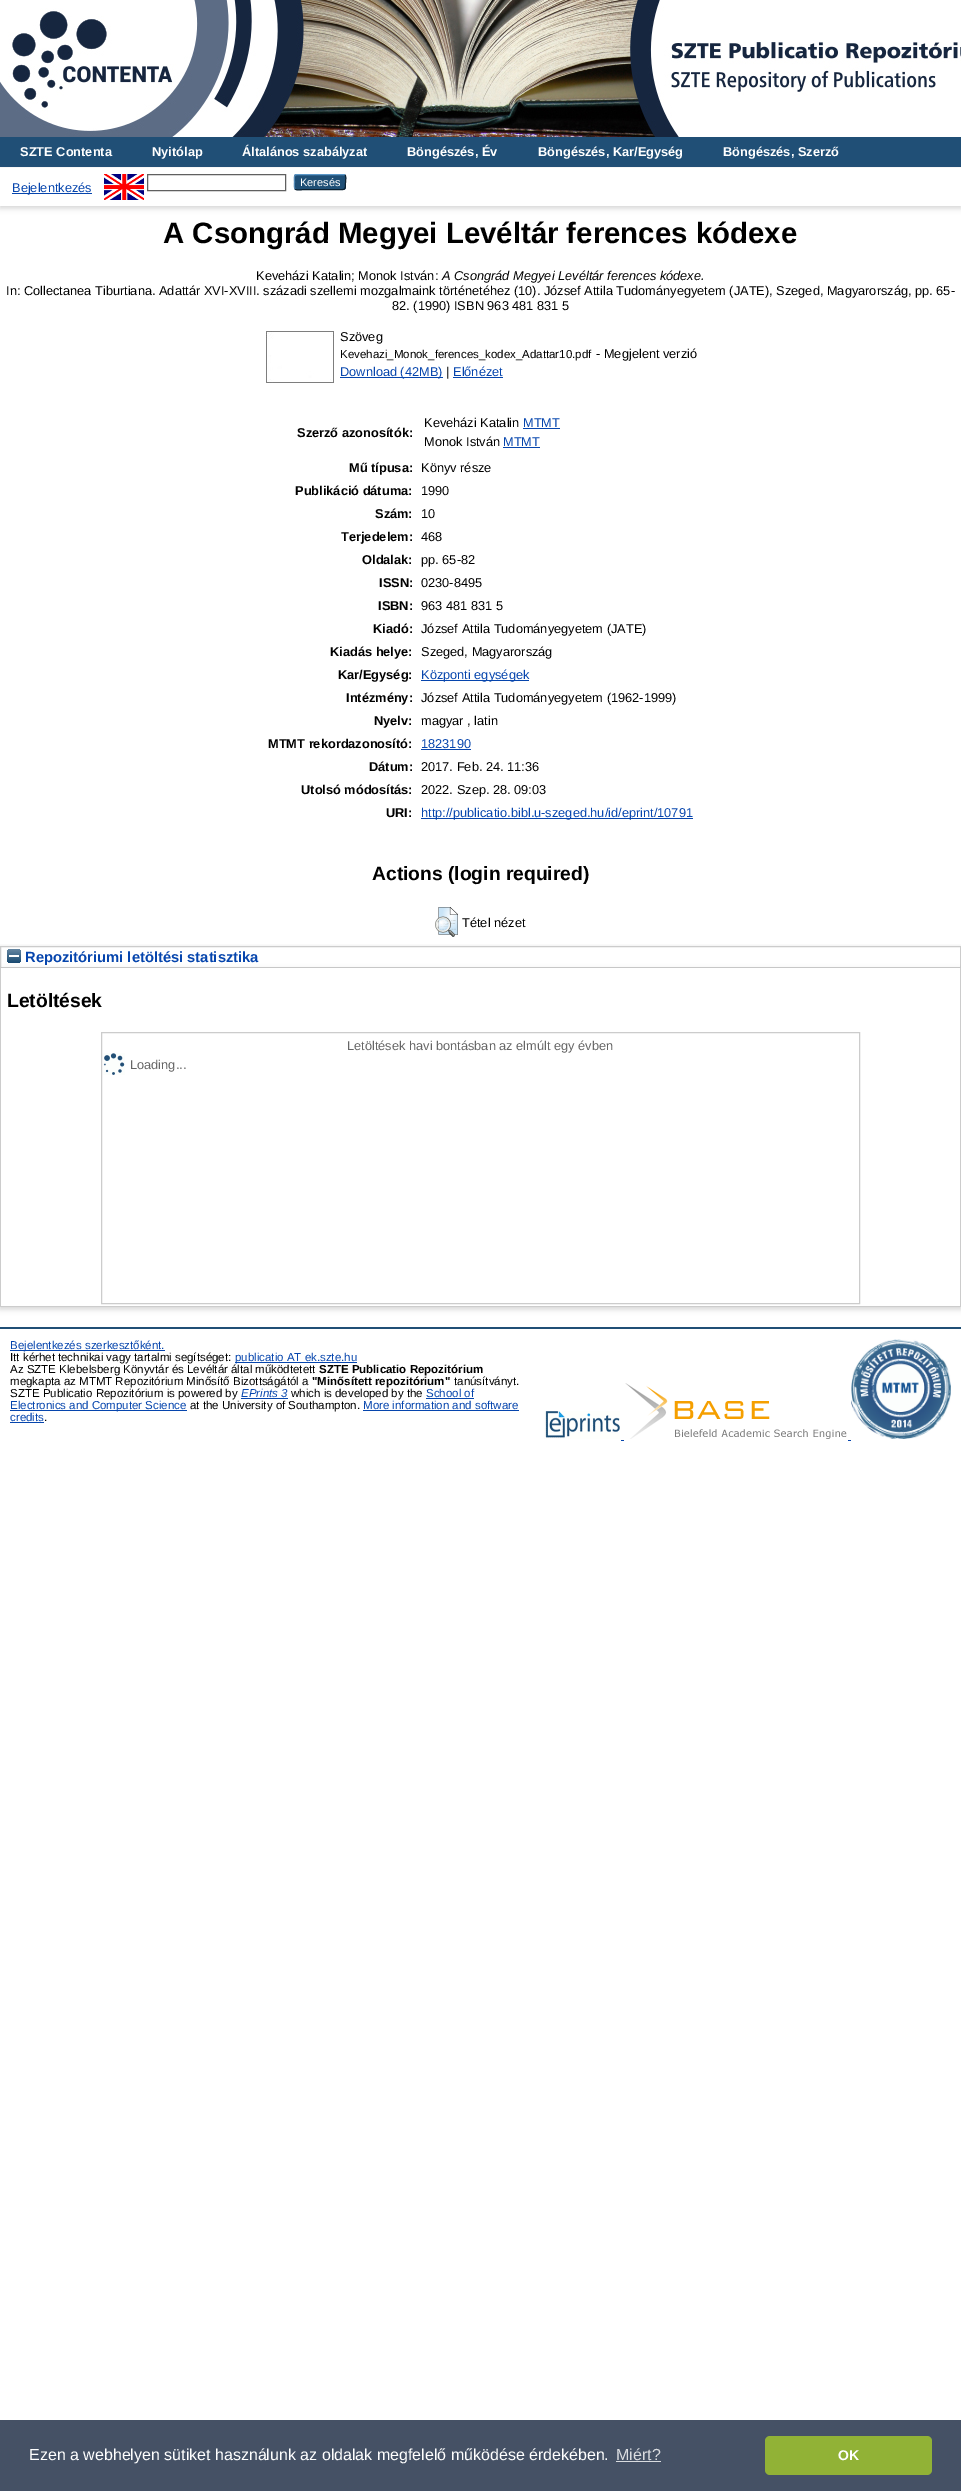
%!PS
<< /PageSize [961 2491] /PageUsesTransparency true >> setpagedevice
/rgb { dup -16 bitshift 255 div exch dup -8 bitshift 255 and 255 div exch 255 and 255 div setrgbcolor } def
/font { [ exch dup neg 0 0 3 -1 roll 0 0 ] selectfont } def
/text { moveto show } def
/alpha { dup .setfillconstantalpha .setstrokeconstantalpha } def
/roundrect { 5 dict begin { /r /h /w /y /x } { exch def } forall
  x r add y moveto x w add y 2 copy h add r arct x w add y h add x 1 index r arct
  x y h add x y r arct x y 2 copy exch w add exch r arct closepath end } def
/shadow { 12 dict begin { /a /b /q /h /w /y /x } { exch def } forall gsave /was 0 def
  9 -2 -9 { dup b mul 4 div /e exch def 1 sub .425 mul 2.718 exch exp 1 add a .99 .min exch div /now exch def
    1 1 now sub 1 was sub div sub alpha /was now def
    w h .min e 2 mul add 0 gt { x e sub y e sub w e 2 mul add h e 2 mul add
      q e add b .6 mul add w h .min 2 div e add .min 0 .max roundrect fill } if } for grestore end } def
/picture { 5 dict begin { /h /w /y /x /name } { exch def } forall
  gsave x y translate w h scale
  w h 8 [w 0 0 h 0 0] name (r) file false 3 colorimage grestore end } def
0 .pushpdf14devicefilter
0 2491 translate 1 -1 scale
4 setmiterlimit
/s1 { /LiberationSans-Bold 12.8 font 16#FFFFFF rgb } def
/s2 { /LiberationSans-Regular 12.8 font 16#0645AD rgb } def
/s3 { /LiberationSans-Regular 11 font 16#FFFFFF rgb } def
/s4 { /LiberationSans-Bold 29.4 font 16#000000 rgb } def
/s5 { /LiberationSans-Regular 12.8 font 16#000000 rgb } def
/s6 { /LiberationSans-Italic 12.8 font 16#000000 rgb } def
/s7 { /LiberationSans-Regular 11.5 font 16#000000 rgb } def
/s8 { /LiberationSans-Bold 12.8 font 16#000000 rgb } def
/s9 { /LiberationSans-Bold 19.25 font 16#000000 rgb } def
/s10 { /LiberationSans-Bold 14.75 font 16#0645AD rgb } def
/s11 { /LiberationSans-Regular 12.8 font 16#666666 rgb } def
/s12 { /LiberationSans-Regular 11.5 font 16#0645AD rgb } def
/s13 { /LiberationSans-Bold 11.5 font 16#000000 rgb } def
/s14 { /LiberationSans-Italic 11.5 font 16#0645AD rgb } def
/s15 { /LiberationSans-Regular 16 font 16#FFFFFF rgb } def
/s16 { /LiberationSans-Regular 16 font 16#DADCE0 rgb } def
/s17 { /LiberationSans-Bold 14 font 16#FFFFFF rgb } def
16#FFFFFF rgb
0 0 961 2491 rectfill
(pic1.raw) 0 0 961 137 picture
16#204F76 rgb
0 137 961 30 rectfill
s1
(SZTE Contenta) 20 156 text
(Nyitólap) 152 156 text
(Általános szabályzat) 242 156 text
(Böngészés, Év) 407 156 text
(Böngészés, Kar/Egység) 538 156 text
(Böngészés, Szerző) 723 156 text
16#646464 rgb
0 170 961 38 0 3 0.3 shadow
16#FFFFFF rgb
0 168 961 38 rectfill
16#0645AD rgb
12 193 80 1 rectfill
s2
(Bejelentkezés) 12 192 text
(pic2.raw) 104 174 40 26 picture
16#606060 rgb
147.5 174.5 138 16 rectstroke
16#1F4F76 rgb
294 174 52 16 3 roundrect fill
16#5B97C7 rgb
295 175 moveto 297 174.5 lineto 343 174.5 lineto 345 175 lineto stroke
16#0D2131 rgb
345 175 moveto 346.5 177 345.5 180 345.5 182 curveto 345.5 191 345.5 189.5 335.5 189.5 curveto 304.5 189.5 lineto 301.5 189.5 297.5 191 295 189 curveto stroke
16#5287B3 rgb
295 189 moveto 294 187.5 294.5 183.5 294.5 182 curveto 294.5 180.5 294 176.5 295 175 curveto stroke
s3
(Keresés) 300 186 text
s4
(A Csongrád Megyei Levéltár ferences kódexe) 163 243 text
s5
(Keveházi Katalin; Monok István:) 256 280 text
s6
(A Csongrád Megyei Levéltár ferences kódexe.) 442 280 text
s5
(In: Collectanea Tiburtiana. Adattár XVI-XVIII. századi szellemi mozgalmaink történetéhez \(10\). József Attila Tudományegyetem \(JATE\), Szeged, Magyarország, pp. 65-) 6 295 text
(82. \(1990\) ISBN 963 481 831 5) 392 310 text
(pic3.raw) 266 331 68 52 picture
(Szöveg) 340 341 text
s7
(Kevehazi_Monok_ferences_kodex_Adattar10.pdf) 340 358 text
s5
(- Megjelent verzió) 596 358 text
16#0645AD rgb
340 377 103 1 rectfill
(Download \(42MB\)) 340 376 text
s5
(|) 446 376 text
s2
(Előnézet) 453 376 text
453 377 50 1 rectfill
s8
(Szerző azonosítók:) 297 437 text
s5
(Keveházi Katalin) 424 427 text
s2
(MTMT) 523 427 text
523 428 37 1 rectfill
s5
(Monok István) 424 446 text
s2
(MTMT) 503 446 text
503 447 37 1 rectfill
s8
(Mű típusa:) 349 472 text
s5
(Könyv része) 421 472 text
s8
(Publikáció dátuma:) 295 495 text
s5
(1990) 421 495 text
s8
(Szám:) 375 518 text
s5
(10) 421 518 text
s8
(Terjedelem:) 341 541 text
s5
(468) 421 541 text
s8
(Oldalak:) 362 564 text
s5
(pp. 65-82) 421 564 text
s8
(ISSN:) 379 587 text
s5
(0230-8495) 421 587 text
s8
(ISBN:) 378 610 text
s5
(963 481 831 5) 421 610 text
s8
(Kiadó:) 373 633 text
s5
(József Attila Tudományegyetem \(JATE\)) 421 633 text
s8
(Kiadás helye:) 330 656 text
s5
(Szeged, Magyarország) 421 656 text
s8
(Kar/Egység:) 338 679 text
16#0645AD rgb
421 680 108 1 rectfill
s2
(Központi egységek) 421 679 text
s8
(Intézmény:) 346 702 text
s5
(József Attila Tudományegyetem \(1962-1999\)) 421 702 text
s8
(Nyelv:) 374 725 text
s5
(magyar , latin) 421 725 text
s8
(MTMT rekordazonosító:) 268 748 text
s2
(1823190) 421 748 text
421 749 50 1 rectfill
s8
(Dátum:) 369 771 text
s5
(2017. Feb. 24. 11:36) 421 771 text
s8
(Utolsó módosítás:) 301 794 text
s5
(2022. Szep. 28. 09:03) 421 794 text
s8
(URI:) 386 817 text
16#0645AD rgb
421 818 272 1 rectfill
s2
(http://publicatio.bibl.u-szeged.hu/id/eprint/10791) 421 817 text
s9
(Actions \(login required\)) 372 880 text
(pic4.raw) 435 907 23 30 picture
s5
(Tétel nézet) 462 927 text
gsave
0 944 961 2 rectclip
16#646464 rgb
0 948 961 22 0 3 0.3 shadow
grestore
16#CCCCCC rgb
0.5 946.5 960 21 rectstroke
16#646464 rgb
0 970 961 339 0 3 0.3 shadow
(pic5.raw) 7 949 14 14 picture
s10
(Repozitóriumi letöltési statisztika) 25 962 text
16#FFFFFF rgb
1 968 959 338 rectfill
16#CCCCCC rgb
960 968 1 339 rectfill
0 1306 961 1 rectfill
0 968 1 339 rectfill
s9
(Letöltések) 7 1007 text
16#CCCCCC rgb
101.5 1032.5 758 271 rectstroke
s11
(Letöltések havi bontásban az elmúlt egy évben) 347 1050 text
(pic6.raw) 103 1053 22 22 picture
(Loading...) 130 1069 text
16#204F76 rgb
0 1327 961 2 rectfill
16#0645AD rgb
10 1350 155 1 rectfill
s12
(Bejelentkezés szerkesztőként.) 10 1349 text
s7
(Itt kérhet technikai vagy tartalmi segítséget:) 10 1361 text
16#0645AD rgb
235 1362 122 1 rectfill
(publicatio AT ek.szte.hu) 235 1361 text
s7
(Az SZTE Klebelsberg Könyvtár és Levéltár által működtetett) 10 1373 text
s13
(SZTE Publicatio Repozitórium) 319 1373 text
s7
(megkapta az MTMT Repozitórium Minősítő Bizottságától a) 10 1385 text
s13
("Minősített repozitórium") 312 1385 text
s7
(tanúsítványt.) 454 1385 text
(SZTE Publicatio Repozitórium is powered by) 10 1397 text
s14
(EPrints 3) 241 1397 text
241 1398 47 1 rectfill
s7
(which is developed by the) 291 1397 text
s12
(School of) 426 1397 text
426 1398 48 1 rectfill
10 1410 177 1 rectfill
(Electronics and Computer Science) 10 1409 text
s7
(at the University of Southampton.) 190 1409 text
s12
(More information and software) 363 1409 text
363 1410 156 1 rectfill
(credits) 10 1421 text
10 1422 34 1 rectfill
s7
(.) 44 1421 text
(pic7.raw) 544 1411 76 28 picture
(pic8.raw) 625 1383 222 56 picture
(pic9.raw) 851 1339 100 100 picture
16#0645AD rgb
621 1440 3 1 rectfill
848 1440 3 1 rectfill
16#455165 rgb
0 2420 961 71 rectfill
s15
(Ezen a webhelyen sütiket használunk az oldalak megfelelő működése érdekében.) 29 2460 text
s16
(Miért?) 616 2460 text
616 2461 45 1 rectfill
16#91B236 rgb
765 2436 167 39 5 roundrect fill
s17
(OK) 838 2460 text
.poppdf14devicefilter showpage
